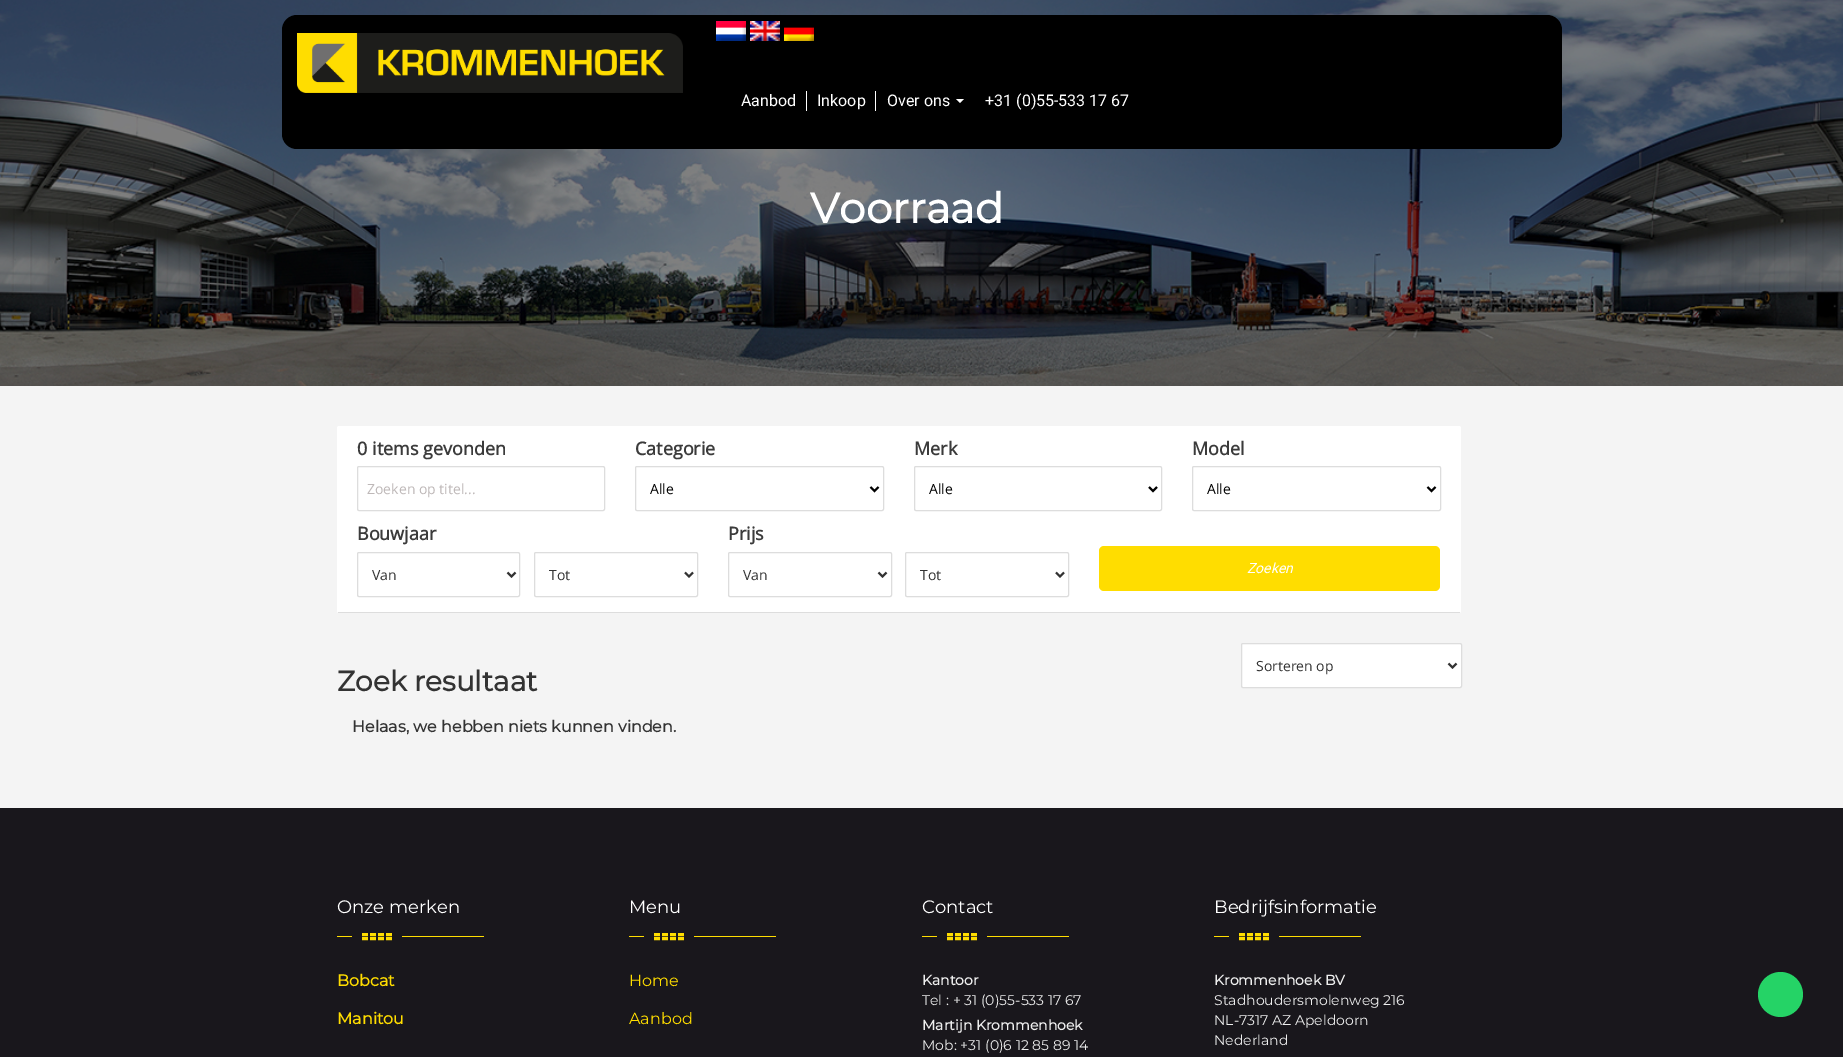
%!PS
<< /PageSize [1843 1057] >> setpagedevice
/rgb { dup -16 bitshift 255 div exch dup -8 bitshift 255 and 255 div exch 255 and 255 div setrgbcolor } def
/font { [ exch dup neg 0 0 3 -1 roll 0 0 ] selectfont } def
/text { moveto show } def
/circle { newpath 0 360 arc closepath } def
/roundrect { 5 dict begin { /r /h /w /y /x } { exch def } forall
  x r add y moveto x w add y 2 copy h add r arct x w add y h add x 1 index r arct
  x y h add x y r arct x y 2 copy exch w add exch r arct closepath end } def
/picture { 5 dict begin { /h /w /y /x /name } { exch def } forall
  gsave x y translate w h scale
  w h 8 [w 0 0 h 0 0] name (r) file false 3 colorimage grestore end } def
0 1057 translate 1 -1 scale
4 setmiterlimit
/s1 { /Roboto-Regular 16 font 16#FFFFFF rgb } def
/s2 { /Montserrat-Bold 42 font 16#FFFFFF rgb } def
/s3 { /OpenSans-Bold 18 font 16#3B3B3B rgb } def
/s4 { /OpenSans-Regular 14 font 16#BEB8B8 rgb } def
/s5 { /OpenSans-Regular 14 font 16#000000 rgb } def
/s6 { /OpenSans-Regular 14 font 16#333333 rgb } def
/s7 { /Roboto-Italic 14 font 16#FFFFFF rgb } def
/s8 { /Montserrat-Bold 28 font 16#333333 rgb } def
/s9 { /Montserrat-Bold 16 font 16#333333 rgb } def
/s10 { /Montserrat-Thin 18 font 16#FFFFFF rgb } def
/s11 { /Montserrat-Bold 16 font 16#FFDD00 rgb } def
/s12 { /Montserrat-Thin 16 font 16#FFDD00 rgb } def
/s13 { /Montserrat-Bold 14 font 16#EEEEEE rgb } def
/s14 { /Montserrat-Thin 14 font 16#EEEEEE rgb } def
16#F4F4F4 rgb
0 0 1843 1057 rectfill
(pic5.raw) 0 0 1843 386 picture
16#000000 rgb
282 15 1280 134 15 roundrect fill
(pic1.raw) 297 33 386 60 picture
(pic2.raw) 716 21 30 20 picture
(pic3.raw) 750 21 30 20 picture
(pic4.raw) 784 27 30 14 picture
s1
(Aanbod) 741 106 text
806 91 1 20 rectfill
(Inkoop) 817 106 text
875 91 1 20 rectfill
(Over ons) 887 106 text
956 99 moveto 964 99 lineto 960 103 lineto closepath fill
(+31 \(0\)55-533 17 67) 985 106 text
s2
(Voorraad) 810 223 text
337 426 1124 187 2 roundrect fill
16#DDDDDD rgb
338 612 1122 1 rectfill
s3
(0 items gevonden) 357 455 text
16#DDDDDD rgb
357.5 466.5 247 44 1.5 roundrect stroke
s4
(Zoeken op titel...) 367 494 text
s3
(Categorie) 635 455 text
16#DDDDDD rgb
635.5 466.5 248 44 1.5 roundrect stroke
16#000000 rgb
2 setlinewidth
870.5 487 moveto 874.5 491 lineto 878.5 487 lineto stroke
s5
(Alle) 650 494 text
s3
(Merk) 914 455 text
16#DDDDDD rgb
1 setlinewidth
914.5 466.5 247 44 1.5 roundrect stroke
16#000000 rgb
2 setlinewidth
1149 487 moveto 1153 491 lineto 1157 487 lineto stroke
s5
(Alle) 929 494 text
s3
(Model) 1192 455 text
16#DDDDDD rgb
1 setlinewidth
1192.5 466.5 248 44 1.5 roundrect stroke
16#000000 rgb
2 setlinewidth
1427.5 487 moveto 1431.5 491 lineto 1435.5 487 lineto stroke
s5
(Alle) 1207 494 text
s3
(Bouwjaar) 357 540 text
16#DDDDDD rgb
1 setlinewidth
357.5 552.5 162 44 1.5 roundrect stroke
16#333333 rgb
2 setlinewidth
507.5 572.5 moveto 511.5 576.5 lineto 515.5 572.5 lineto stroke
s6
(Van) 372 580 text
16#DDDDDD rgb
1 setlinewidth
534.5 552.5 163 44 1.5 roundrect stroke
16#333333 rgb
2 setlinewidth
685 572.5 moveto 689 576.5 lineto 693 572.5 lineto stroke
(Tot) 549 580 text
s3
(Prijs) 728 540 text
16#DDDDDD rgb
1 setlinewidth
728.5 552.5 163 44 1.5 roundrect stroke
16#333333 rgb
2 setlinewidth
878.5 572.5 moveto 882.5 576.5 lineto 886.5 572.5 lineto stroke
s6
(Van) 743 580 text
16#DDDDDD rgb
1 setlinewidth
905.5 552.5 163 44 1.5 roundrect stroke
16#333333 rgb
2 setlinewidth
1056 572.5 moveto 1060 576.5 lineto 1064 572.5 lineto stroke
(Tot) 920 580 text
16#FFDD00 rgb
1099 546 341 45 5 roundrect fill
s7
(Zoeken) 1247 573 text
1241.5 643.5 220 44 1.5 roundrect gsave fill grestore
16#DDDDDD rgb
1 setlinewidth
stroke
16#333333 rgb
2 setlinewidth
1448.5 663.5 moveto 1452.5 667.5 lineto 1456.5 663.5 lineto stroke
s6
(Sorteren op) 1256 671 text
s8
(Zoek resultaat) 337 691 text
s9
(Helaas, we hebben niets kunnen vinden.) 352 732 text
16#19171C rgb
0 808 1843 249 rectfill
s10
(Onze merken) 337 913 text
16#FFDD00 rgb
3 setlinewidth
[6 2] 0 setdash
362 934.5 moveto 392 934.5 lineto 362 938.5 moveto 392 938.5 lineto stroke
337 936 15 1 rectfill
402 936 82 1 rectfill
s11
(Bobcat) 337 986 text
(Manitou) 337 1024 text
s10
(Menu) 629 913 text
16#FFDD00 rgb
654 934.5 moveto 684 934.5 lineto 654 938.5 moveto 684 938.5 lineto stroke
629 936 15 1 rectfill
694 936 82 1 rectfill
s12
(Home) 629 986 text
(Aanbod) 629 1024 text
s10
(Contact) 922 913 text
16#FFDD00 rgb
947 934.5 moveto 977 934.5 lineto 947 938.5 moveto 977 938.5 lineto stroke
922 936 15 1 rectfill
987 936 82 1 rectfill
s13
(Kantoor) 922 985 text
s14
(Tel : + 31 \(0\)55-533 17 67) 922 1005 text
s13
(Martijn Krommenhoek) 922 1030 text
s14
(Mob: +31 \(0\)6 12 85 89 14) 922 1050 text
s10
(Bedrijfsinformatie) 1214 913 text
16#FFDD00 rgb
1239 934.5 moveto 1269 934.5 lineto 1239 938.5 moveto 1269 938.5 lineto stroke
1214 936 15 1 rectfill
1279 936 82 1 rectfill
s13
(Krommenhoek BV) 1214 985 text
s14
(Stadhoudersmolenweg 216) 1214 1005 text
(NL-7317 AZ Apeldoorn) 1214 1025 text
(Nederland) 1214 1045 text
16#25D366 rgb
1780.5 994.5 22.5 circle fill
showpage
